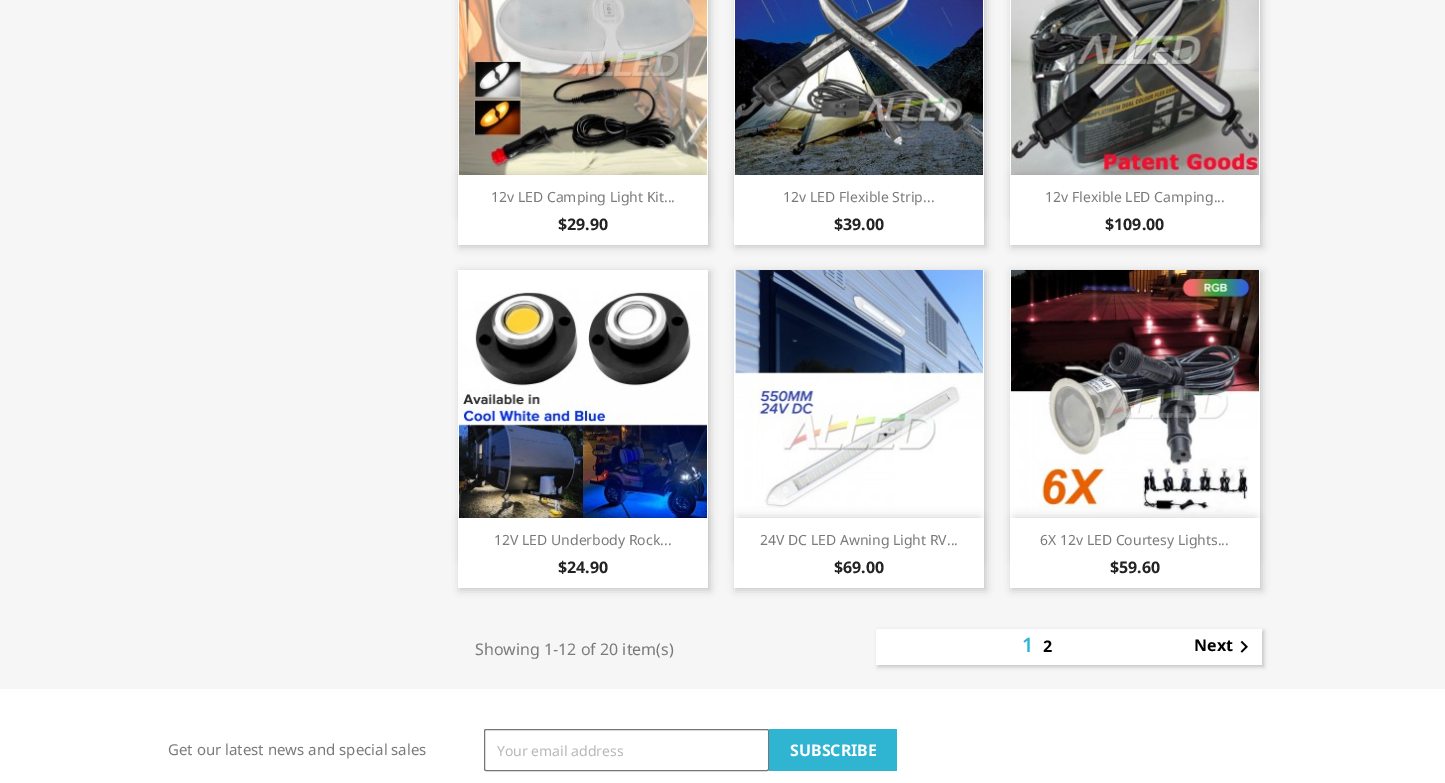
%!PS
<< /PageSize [1445 783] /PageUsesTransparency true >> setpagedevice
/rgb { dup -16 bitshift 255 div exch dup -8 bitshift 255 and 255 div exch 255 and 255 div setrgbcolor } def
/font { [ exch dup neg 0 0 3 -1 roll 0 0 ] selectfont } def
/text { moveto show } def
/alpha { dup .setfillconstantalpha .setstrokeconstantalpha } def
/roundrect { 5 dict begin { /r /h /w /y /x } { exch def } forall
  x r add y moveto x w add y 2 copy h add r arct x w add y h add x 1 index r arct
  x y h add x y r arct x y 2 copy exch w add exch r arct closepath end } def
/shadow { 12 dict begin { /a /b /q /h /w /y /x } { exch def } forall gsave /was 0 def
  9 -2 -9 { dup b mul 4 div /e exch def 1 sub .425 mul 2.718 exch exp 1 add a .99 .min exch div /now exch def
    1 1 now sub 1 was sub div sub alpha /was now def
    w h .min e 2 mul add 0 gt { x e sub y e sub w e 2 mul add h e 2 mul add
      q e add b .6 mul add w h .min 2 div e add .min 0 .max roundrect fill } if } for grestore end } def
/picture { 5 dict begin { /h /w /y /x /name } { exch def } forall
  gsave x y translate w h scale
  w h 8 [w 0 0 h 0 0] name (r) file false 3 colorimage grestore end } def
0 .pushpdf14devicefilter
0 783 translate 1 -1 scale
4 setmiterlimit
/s1 { /NotoSans-Regular 14 font 16#7A7A7A rgb } def
/s2 { /NotoSans-Bold 16 font 16#232323 rgb } def
/s3 { /NotoSans-Regular 16 font 16#7A7A7A rgb } def
/s4 { /NotoSans-Bold 16 font 16#000000 rgb } def
/s5 { /NotoSans-Regular 15 font 16#7A7A7A rgb } def
/s6 { /NotoSans-Regular 14 font 16#B7B7B7 rgb } def
/s7 { /NotoSans-Bold 16 font 16#FFFFFF rgb } def
16#FFFFFF rgb
0 0 1445 783 rectfill
16#F6F6F6 rgb
0 0 1445 689 rectfill
16#000000 rgb
460 -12 250 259 0 4 0.2 shadow
16#FFFFFF rgb
458 0 250 175 rectfill
(pic1.raw) 459 0 248 175 picture
16#000000 rgb
463 175 240 40 0 5 0.2 shadow
16#FFFFFF rgb
458 175 250 70 rectfill
s1
(12v LED Camping Light Kit...) 491 202 text
s2
($29.90) 558 230 text
16#000000 rgb
736 -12 250 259 0 4 0.2 shadow
16#FFFFFF rgb
734 0 250 175 rectfill
(pic2.raw) 735 0 248 175 picture
16#000000 rgb
739 175 240 40 0 5 0.2 shadow
16#FFFFFF rgb
734 175 250 70 rectfill
s1
(12v LED Flexible Strip...) 783 202 text
s2
($39.00) 834 230 text
16#000000 rgb
1012 -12 250 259 0 4 0.2 shadow
16#FFFFFF rgb
1010 0 250 175 rectfill
(pic3.raw) 1011 0 248 175 picture
16#000000 rgb
1015 175 240 40 0 5 0.2 shadow
16#FFFFFF rgb
1010 175 250 70 rectfill
s1
(12v Flexible LED Camping...) 1045 202 text
s2
($109.00) 1105 230 text
16#000000 rgb
460 272 250 318 0 4 0.2 shadow
16#FFFFFF rgb
458 270 250 248 rectfill
(pic4.raw) 459 290 248 228 picture
16#000000 rgb
463 518 240 40 0 5 0.2 shadow
16#FFFFFF rgb
458 518 250 70 rectfill
s1
(12V LED Underbody Rock...) 494 545 text
s2
($24.90) 558 573 text
16#000000 rgb
736 272 250 318 0 4 0.2 shadow
16#FFFFFF rgb
734 270 250 248 rectfill
(pic5.raw) 735 270 248 238 picture
16#000000 rgb
739 518 240 40 0 5 0.2 shadow
16#FFFFFF rgb
734 518 250 70 rectfill
s1
(24V DC LED Awning Light RV...) 760 545 text
s2
($69.00) 834 573 text
16#000000 rgb
1012 272 250 318 0 4 0.2 shadow
16#FFFFFF rgb
1010 270 250 248 rectfill
(pic6.raw) 1011 270 248 245 picture
16#000000 rgb
1015 518 240 40 0 5 0.2 shadow
16#FFFFFF rgb
1010 518 250 70 rectfill
s1
(6X 12v LED Courtesy Lights...) 1040 545 text
s2
($59.60) 1110 573 text
s3
(Showing 1-12 of 20 item\(s\)) 475 655 text
16#000000 rgb
878 631 386 36 0 2 0.2 shadow
16#FFFFFF rgb
876 629 386 36 rectfill
/NotoSans-SemiBold 20 font
16#2FB5D2 rgb
1022 652 moveto 2 0 (1) ashow
/NotoSans-Bold 16 font
16#000000 rgb
1043 652 moveto 2 0 (2) ashow
(Next) 1194 651 text
(pic7.raw) 1240 640 8 13 picture
s5
(Get our latest news and special sales) 168 755 text
16#767676 rgb
484.5 729.5 284 41 1.5 roundrect stroke
s6
(Your email address) 497 756 text
16#2FB5D2 rgb
769 729 128 42 rectfill
s7
(SUBSCRIBE) 790 756 text
.poppdf14devicefilter showpage
